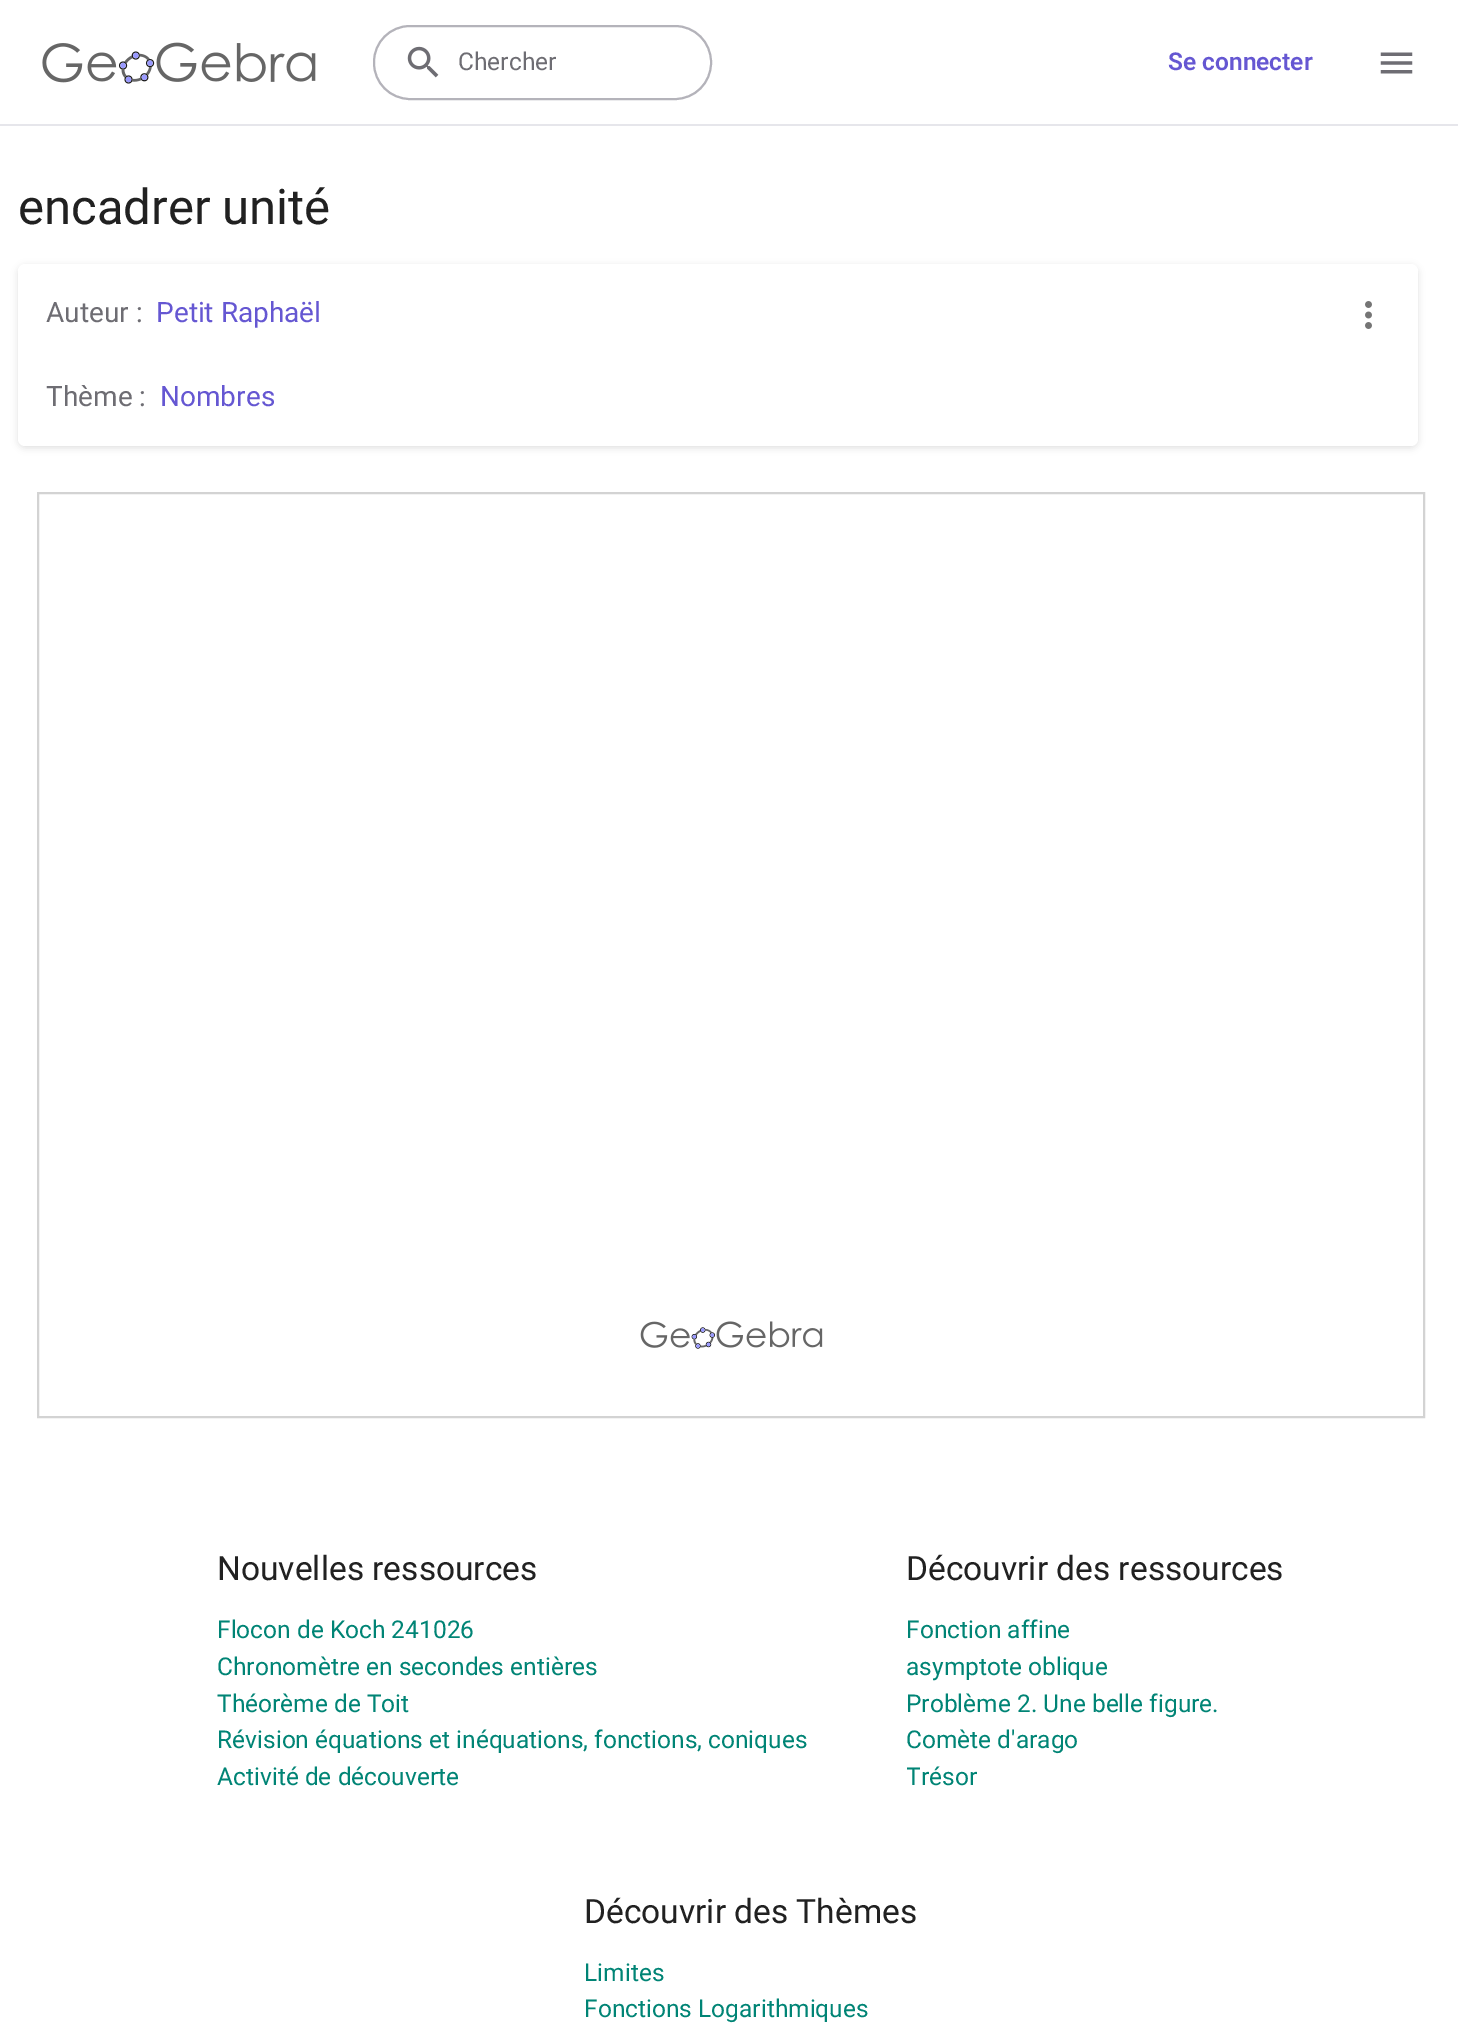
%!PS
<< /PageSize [1458 2040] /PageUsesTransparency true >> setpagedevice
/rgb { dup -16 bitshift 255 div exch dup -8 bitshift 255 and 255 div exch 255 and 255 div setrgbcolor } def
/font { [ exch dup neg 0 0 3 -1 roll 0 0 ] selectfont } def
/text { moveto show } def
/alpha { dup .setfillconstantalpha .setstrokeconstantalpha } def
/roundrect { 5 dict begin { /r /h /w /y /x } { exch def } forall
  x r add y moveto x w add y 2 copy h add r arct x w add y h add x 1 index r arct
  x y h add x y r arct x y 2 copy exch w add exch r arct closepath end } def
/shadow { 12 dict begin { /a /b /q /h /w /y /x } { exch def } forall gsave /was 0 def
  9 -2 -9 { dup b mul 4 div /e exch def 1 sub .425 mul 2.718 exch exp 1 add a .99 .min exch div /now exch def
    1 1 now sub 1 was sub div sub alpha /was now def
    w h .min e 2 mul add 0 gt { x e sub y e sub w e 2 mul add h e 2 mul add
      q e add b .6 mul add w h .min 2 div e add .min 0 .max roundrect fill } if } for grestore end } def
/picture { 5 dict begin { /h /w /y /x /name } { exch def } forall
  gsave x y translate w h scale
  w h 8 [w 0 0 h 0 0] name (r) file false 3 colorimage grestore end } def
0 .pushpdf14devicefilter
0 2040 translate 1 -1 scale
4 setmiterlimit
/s1 { /Roboto-Regular 24.5 font 16#6E6D73 rgb } def
/s2 { /Roboto-SemiBold 24.5 font 16#6557D2 rgb } def
/s3 { /Roboto-Regular 49 font 16#212121 rgb } def
/s4 { /Roboto-Regular 28 font 16#6E6D73 rgb } def
/s5 { /Roboto-Regular 28 font 16#6557D2 rgb } def
/s6 { /Roboto-Regular 33.5 font 16#212121 rgb } def
/s7 { /Roboto-Regular 24.5 font 16#008475 rgb } def
16#FFFFFF rgb
0 0 1458 2040 rectfill
16#E6E6EB rgb
0 124 1458 2 rectfill
(pic1.raw) 42 42 274 42 picture
16#B4B3BA rgb
2 setlinewidth
374 26 337 73 36 roundrect stroke
(pic2.raw) 407 46 32 32 picture
s1
(Chercher) 458 70 text
s2
(Se connecter) 1168 70 text
(pic3.raw) 1380 52 33 22 picture
s3
(encadrer unité) 18 224 text
16#1C1C1F rgb
18 266 1400 182 7 3.5 0.14 shadow
16#FFFFFF rgb
18 264 1400 182 7 roundrect fill
s4
(Auteur :) 46 322 text
s5
(Petit Raphaël) 156 322 text
s4
(Thème :) 46 406 text
s5
(Nombres) 160 406 text
(pic4.raw) 1365 301 7 28 picture
(pic5.raw) 640 1321 183 28 picture
16#D3D3D3 rgb
38 493 1386 924 rectstroke
s6
(Nouvelles ressources) 217 1580 text
s7
(Flocon de Koch 241026) 217 1638 text
(Chronomètre en secondes entières) 217 1675 text
(Théorème de Toit) 217 1712 text
(Révision équations et inéquations, fonctions, coniques) 217 1748 text
(Activité de découverte) 217 1785 text
s6
(Découvrir des ressources) 906 1580 text
s7
(Fonction affine) 906 1638 text
(asymptote oblique) 906 1675 text
(Problème 2. Une belle figure.) 906 1712 text
(Comète d'arago) 906 1748 text
gsave
907 1759 378 37 rectclip
(Trésor) 906 1785 text
grestore
s6
(Découvrir des Thèmes) 584 1923 text
s7
(Limites) 584 1981 text
(Fonctions Logarithmiques) 584 2017 text
.poppdf14devicefilter showpage
